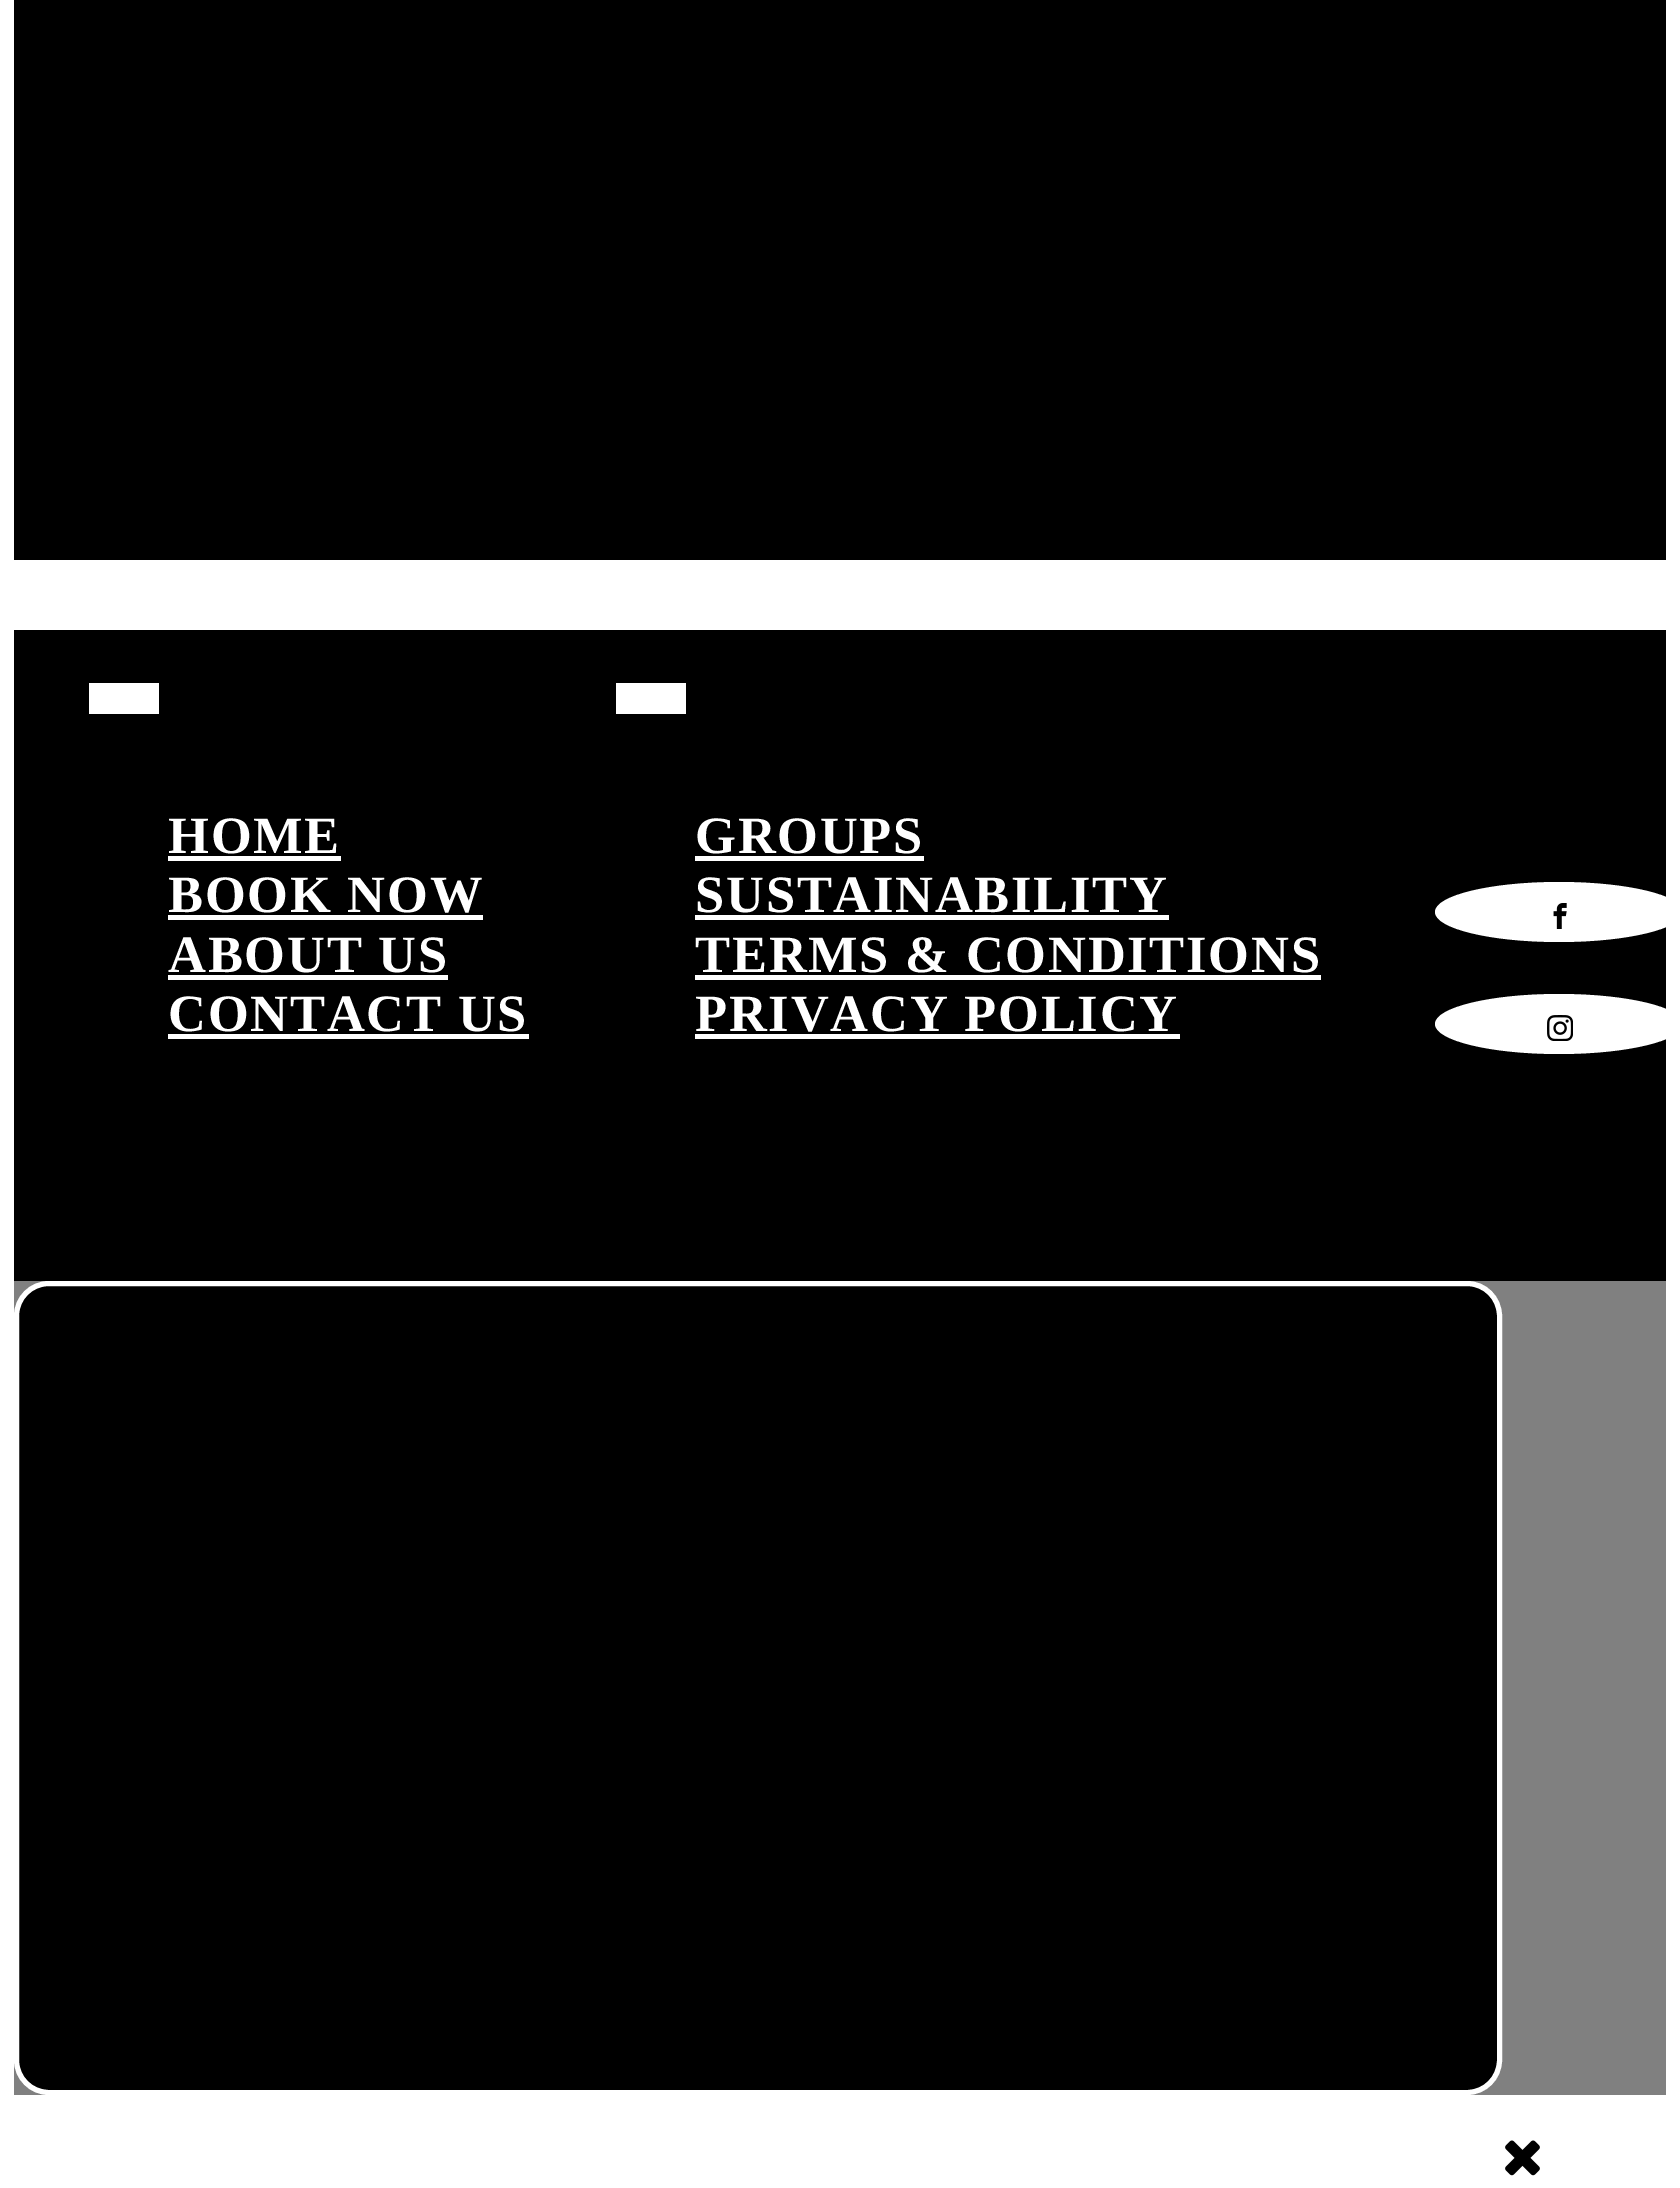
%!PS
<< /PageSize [1680 2188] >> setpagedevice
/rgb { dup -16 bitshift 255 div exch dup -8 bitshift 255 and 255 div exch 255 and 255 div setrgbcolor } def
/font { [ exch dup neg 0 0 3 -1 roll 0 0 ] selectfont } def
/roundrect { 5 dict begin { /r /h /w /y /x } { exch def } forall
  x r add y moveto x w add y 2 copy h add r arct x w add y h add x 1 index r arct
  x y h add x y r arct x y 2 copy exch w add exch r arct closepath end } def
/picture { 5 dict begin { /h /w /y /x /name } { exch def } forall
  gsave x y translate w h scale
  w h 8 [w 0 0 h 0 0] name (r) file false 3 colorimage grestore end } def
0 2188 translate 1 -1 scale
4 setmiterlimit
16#FFFFFF rgb
0 0 1680 2188 rectfill
16#000000 rgb
14 0 1652 560 rectfill
14 630 1652 651 rectfill
16#FFFFFF rgb
89 683 70 31 rectfill
/LiberationSerif-Bold 52.5 font
168 853 moveto 1.75 0 (HOME) ashow
168 856 173 5 rectfill
168 912 moveto 1.75 0 (BOOK NOW) ashow
168 915 315 5 rectfill
168 972 moveto 1.75 0 (ABOUT US) ashow
168 975 280 5 rectfill
168 1031 moveto 1.75 0 (CONTACT US) ashow
168 1034 361 5 rectfill
616 683 70 31 rectfill
695 853 moveto 1.75 0 (GROUPS) ashow
695 856 229 5 rectfill
695 912 moveto 1.75 0 (SUSTAINABILITY) ashow
695 915 474 5 rectfill
695 972 moveto 1.75 0 (TERMS & CONDITIONS) ashow
695 975 626 5 rectfill
695 1031 moveto 1.75 0 (PRIVACY POLICY) ashow
695 1034 485 5 rectfill
1559 882 moveto 1627.5 882 1683 895.5 1683 912 curveto 1683 928.5 1627.5 942 1559 942 curveto 1490.5 942 1435 928.5 1435 912 curveto 1435 895.5 1490.5 882 1559 882 curveto closepath fill
(pic1.raw) 1553 903 14 26 picture
1559 994 moveto 1627.5 994 1683 1007.5 1683 1024 curveto 1683 1040.5 1627.5 1054 1559 1054 curveto 1490.5 1054 1435 1040.5 1435 1024 curveto 1435 1007.5 1490.5 994 1559 994 curveto closepath fill
(pic2.raw) 1547 1015 26 26 picture
16#808080 rgb
14 1281 1652 814 rectfill
16#000000 rgb
16.5 1283.5 1483 809 32.5 roundrect gsave fill grestore
16#FFFFFF rgb
5 setlinewidth
stroke
(pic3.raw) 1505 2140 35 36 picture
showpage
